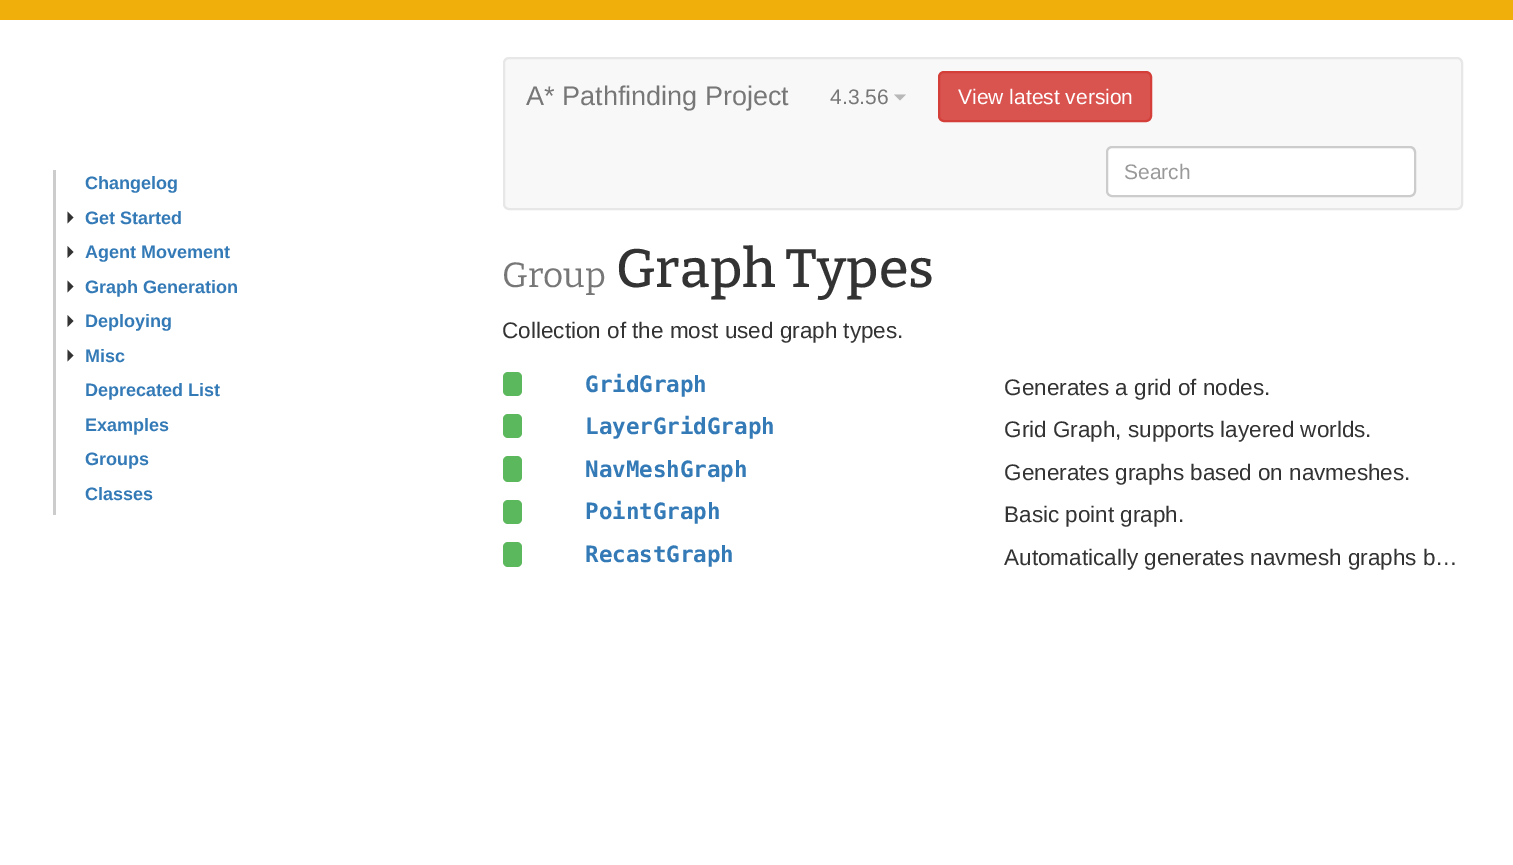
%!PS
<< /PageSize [1513 865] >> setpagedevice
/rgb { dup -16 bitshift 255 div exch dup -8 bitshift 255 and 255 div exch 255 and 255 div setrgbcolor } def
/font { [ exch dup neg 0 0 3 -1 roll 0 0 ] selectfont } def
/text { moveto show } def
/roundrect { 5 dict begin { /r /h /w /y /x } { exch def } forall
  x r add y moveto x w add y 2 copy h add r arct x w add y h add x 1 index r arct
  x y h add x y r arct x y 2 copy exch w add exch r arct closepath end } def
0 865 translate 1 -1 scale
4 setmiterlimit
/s1 { /LiberationSans-Bold 18 font 16#337AB7 rgb } def
/s2 { /LiberationSans-Regular 27 font 16#777777 rgb } def
/s3 { /LiberationSans-Regular 21 font 16#777777 rgb } def
/s4 { /LiberationSans-Regular 21 font 16#FFFFFF rgb } def
/s5 { /LiberationSans-Regular 21 font 16#999999 rgb } def
/s6 { /Bitter-Regular 35 font 16#777777 rgb } def
/s7 { /LiberationSans-Regular 22.5 font 16#333333 rgb } def
/s8 { /DejaVuSansMono-Bold 22.5 font 16#337AB7 rgb } def
16#FFFFFF rgb
0 0 1513 865 rectfill
16#F0AF0B rgb
0 0 1513 20 rectfill
16#CCCCCC rgb
53 170 3 345 rectfill
s1
(Changelog) 85 189 text
16#333333 rgb
67.5 223.5 moveto 67.5 211.5 lineto 73.5 217.5 lineto closepath fill
s1
(Get Started) 85 224 text
16#333333 rgb
67.5 258 moveto 67.5 246 lineto 73.5 252 lineto closepath fill
s1
(Agent Movement) 85 258 text
16#333333 rgb
67.5 292.5 moveto 67.5 280.5 lineto 73.5 286.5 lineto closepath fill
s1
(Graph Generation) 85 293 text
16#333333 rgb
67.5 327 moveto 67.5 315 lineto 73.5 321 lineto closepath fill
s1
(Deploying) 85 327 text
16#333333 rgb
67.5 361.5 moveto 67.5 349.5 lineto 73.5 355.5 lineto closepath fill
s1
(Misc) 85 362 text
(Deprecated List) 85 396 text
(Examples) 85 431 text
(Groups) 85 465 text
(Classes) 85 500 text
16#F8F8F8 rgb
504 58 958 151 5 roundrect gsave fill grestore
16#E7E7E7 rgb
2 setlinewidth
stroke
s2
(A* Pathfinding Project) 526 105 text
s3
(4.3.56) 830 104 text
16#B8B8B8 rgb
894 94.5 moveto 906 94.5 lineto 900 100.5 lineto closepath fill
16#D9534F rgb
939 72 212 49 5 roundrect gsave fill grestore
16#D43F3A rgb
stroke
s4
(View latest version) 958 104 text
1106 146 310 51 6 roundrect fill
16#ECECEC rgb
1112 148 moveto 1410 148 lineto 1412 148 1414 151 1414 153 curveto 1414 193 lineto 1415 192 1415 191 1415 190 curveto 1415 152 lineto 1415 149 1413 147 1410 147 curveto 1112 147 lineto 1109 147 1107 149 1107 152 curveto 1107 153 lineto 1107 151 1109 148 1112 148 curveto closepath fill
16#CCCCCC rgb
1107 147 308 49 5 roundrect stroke
s5
(Search) 1124 179 text
s6
(Group) 502 287 text
/Bitter-Medium 54 font
16#333333 rgb
616 287 moveto -1 0 32 (Graph Types) widthshow
s7
(Collection of the most used graph types.) 502 338 text
16#5CB85C rgb
503 372 19 24 5 roundrect fill
s8
(GridGraph) 585 392 text
s7
(Generates a grid of nodes.) 1004 395 text
16#5CB85C rgb
503 414 19 24 5 roundrect fill
s8
(LayerGridGraph) 585 434 text
s7
(Grid Graph, supports layered worlds.) 1004 437 text
16#5CB85C rgb
503 456 19 26 5 roundrect fill
s8
(NavMeshGraph) 585 477 text
s7
(Generates graphs based on navmeshes.) 1004 480 text
16#5CB85C rgb
503 500 19 24 5 roundrect fill
s8
(PointGraph) 585 519 text
s7
(Basic point graph.) 1004 522 text
16#5CB85C rgb
503 542 19 25 5 roundrect fill
s8
(RecastGraph) 585 562 text
s7
(Automatically generates navmesh graphs b…) 1004 565 text
showpage
